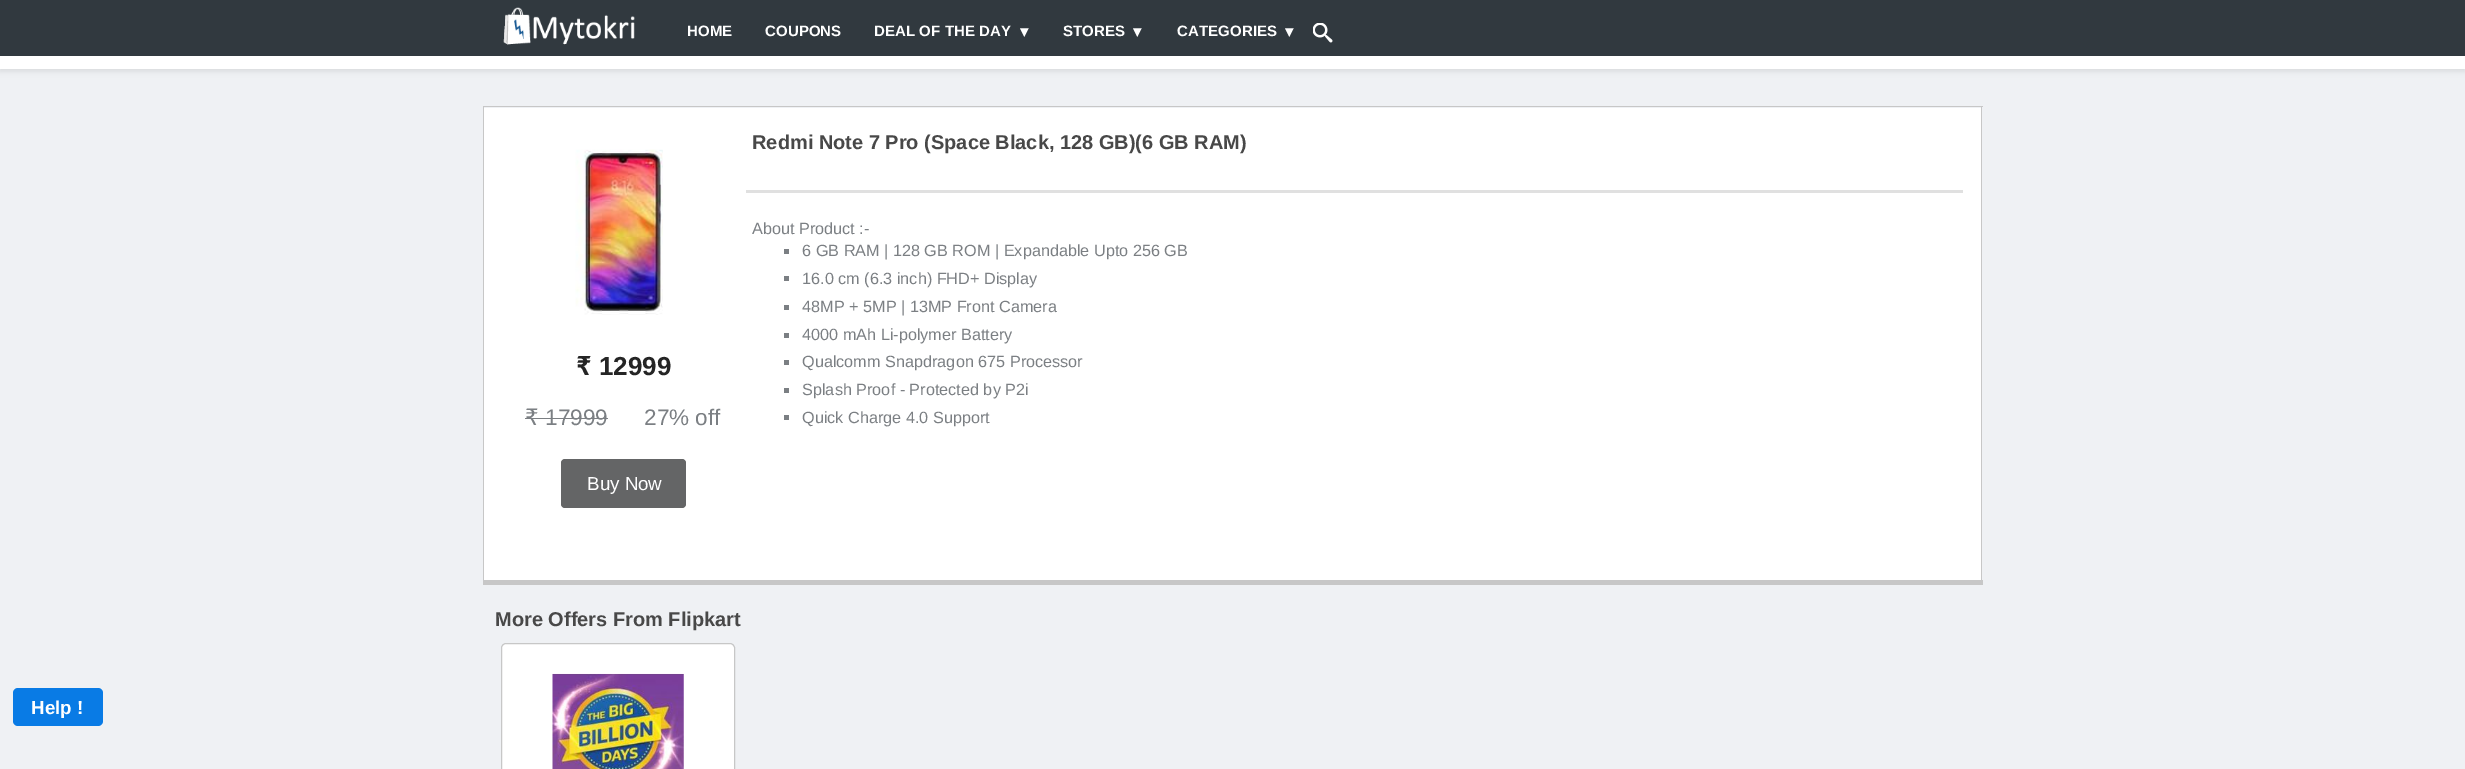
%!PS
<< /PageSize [2465 769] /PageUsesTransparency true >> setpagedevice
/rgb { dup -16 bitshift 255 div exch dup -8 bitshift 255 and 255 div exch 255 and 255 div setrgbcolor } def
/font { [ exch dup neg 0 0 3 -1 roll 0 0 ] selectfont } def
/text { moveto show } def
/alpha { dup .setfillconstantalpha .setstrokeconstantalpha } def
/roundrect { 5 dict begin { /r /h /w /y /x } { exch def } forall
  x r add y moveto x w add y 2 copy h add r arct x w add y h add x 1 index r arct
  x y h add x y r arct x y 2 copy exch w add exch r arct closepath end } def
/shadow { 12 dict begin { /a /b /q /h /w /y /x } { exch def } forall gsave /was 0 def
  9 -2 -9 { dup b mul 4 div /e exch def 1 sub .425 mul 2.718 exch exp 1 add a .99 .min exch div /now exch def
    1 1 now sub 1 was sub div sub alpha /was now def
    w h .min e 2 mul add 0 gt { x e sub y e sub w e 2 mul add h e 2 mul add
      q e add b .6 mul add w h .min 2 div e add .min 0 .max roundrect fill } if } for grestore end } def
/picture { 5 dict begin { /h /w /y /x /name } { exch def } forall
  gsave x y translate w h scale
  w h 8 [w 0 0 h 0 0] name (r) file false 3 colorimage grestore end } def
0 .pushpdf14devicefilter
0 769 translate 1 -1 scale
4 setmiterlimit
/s1 { /DejaVuSansMono-Bold 26 font 16#252525 rgb } def
/s2 { /LiberationSans-Bold 26 font 16#252525 rgb } def
/s3 { /DejaVuSansMono-Regular 22.5 font 16#7B7F83 rgb } def
/s4 { /LiberationSans-Regular 22.5 font 16#7B7F83 rgb } def
/s5 { /LiberationSans-Regular 18.75 font 16#FFFFFF rgb } def
/s6 { /LiberationSans-Bold 20 font 16#484848 rgb } def
/s7 { /LiberationSans-Regular 16.25 font 16#7B7F83 rgb } def
/s8 { /LiberationSans-Bold 18.75 font 16#FFFFFF rgb } def
16#EFF1F4 rgb
0 0 2465 769 rectfill
16#000000 rgb
0 3 2465 68 0 3 0.1 shadow
16#31393F rgb
0 0 2465 56 rectfill
(pic1.raw) 503 7 132 38 picture
/LiberationSans-Bold 15 font
16#FFFFFF rgb
687 36 moveto 0.1 0 (HOME) ashow
765 36 moveto 0.1 0 (COUPONS) ashow
874 36 moveto 0.1 0 (DEAL OF THE DAY) ashow
/DejaVuSans-Bold 16.25 font
1020 37 moveto 0.1 0 (▾) ashow
/LiberationSans-Bold 15 font
1063 36 moveto 0.1 0 (STORES) ashow
/DejaVuSans-Bold 16.25 font
1133 37 moveto 0.1 0 (▾) ashow
/LiberationSans-Bold 15 font
1177 36 moveto 0.1 0 (CATEGORIES) ashow
/DejaVuSans-Bold 16.25 font
1285 37 moveto 0.1 0 (▾) ashow
(pic2.raw) 1313 23 20 20 picture
0 56 2465 13 rectfill
484 108 1497 472 rectfill
16#C7C7C7 rgb
483 106 1500 1 rectfill
1981 106 1 479 rectfill
483 580 1500 5 rectfill
483 106 1 479 rectfill
(pic3.raw) 575 149 88 166 picture
s1
(₹) 576 375 text
s2
(12999) 599 375 text
s3
(₹) 525 425 text
s4
(17999) 545 425 text
525 418 83 1 rectfill
(27% off) 644 425 text
16#646566 rgb
561 459 125 49 4 roundrect fill
s5
(Buy Now) 587 490 text
16#E0E0E0 rgb
746 190 1217 3 rectfill
s6
(Redmi Note 7 Pro \(Space Black, 128 GB\)\(6 GB RAM\)) 752 149 text
s7
(About Product :-) 752 234 text
784 249 5 5 rectfill
(6 GB RAM | 128 GB ROM | Expandable Upto 256 GB) 802 256 text
784 276 5 5 rectfill
(16.0 cm \(6.3 inch\) FHD+ Display) 802 284 text
784 305 5 5 rectfill
(48MP + 5MP | 13MP Front Camera) 802 312 text
784 333 5 5 rectfill
(4000 mAh Li-polymer Battery) 802 340 text
784 360 5 5 rectfill
(Qualcomm Snapdragon 675 Processor) 802 367 text
784 388 5 5 rectfill
(Splash Proof - Protected by P2i) 802 395 text
784 415 5 5 rectfill
(Quick Charge 4.0 Support) 802 423 text
s6
(More Offers From Flipkart) 495 626 text
16#FFFFFF rgb
506 644 moveto 730 644 lineto 732 644 734 645 734 648 curveto 734 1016 lineto 734 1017 732 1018 730 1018 curveto 506 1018 lineto 504 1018 502 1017 502 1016 curveto 502 648 lineto 502 645 504 644 506 644 curveto closepath fill
16#C7C7C7 rgb
501.5 643.5 233 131 4.5 roundrect stroke
(pic4.raw) 552 673 132 96 picture
16#097BE5 rgb
13 688 90 38 5 roundrect fill
s8
(Help !) 31 714 text
.poppdf14devicefilter showpage
